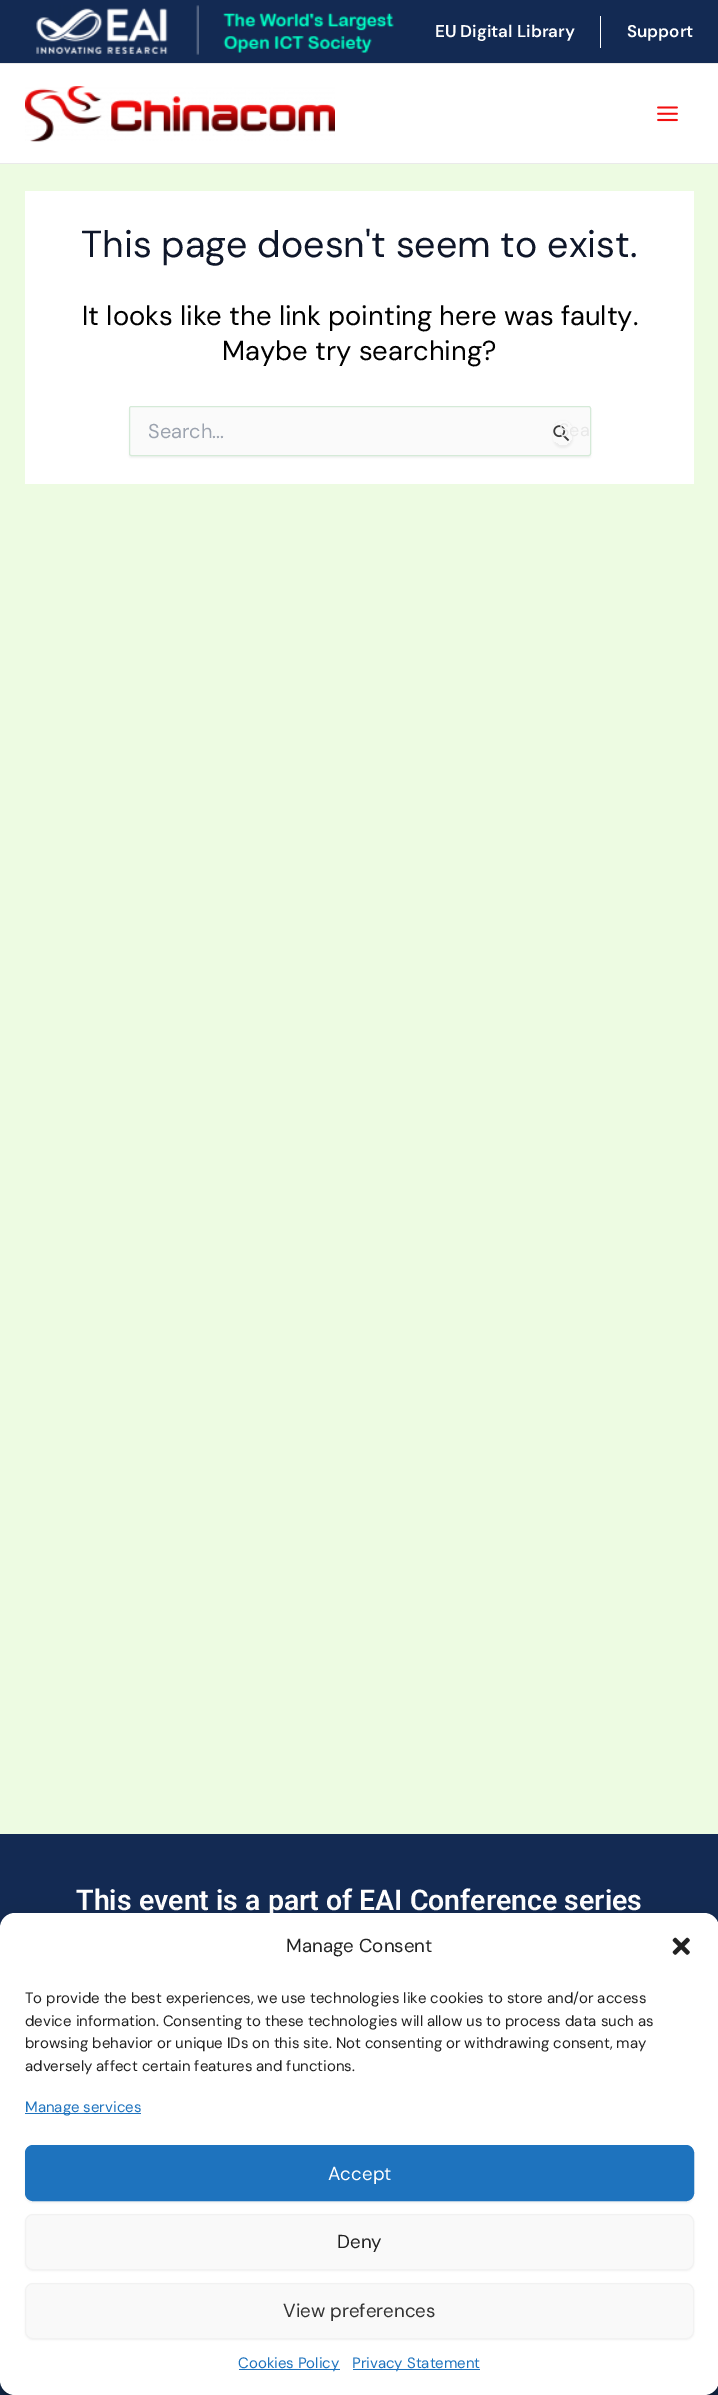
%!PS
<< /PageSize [718 2395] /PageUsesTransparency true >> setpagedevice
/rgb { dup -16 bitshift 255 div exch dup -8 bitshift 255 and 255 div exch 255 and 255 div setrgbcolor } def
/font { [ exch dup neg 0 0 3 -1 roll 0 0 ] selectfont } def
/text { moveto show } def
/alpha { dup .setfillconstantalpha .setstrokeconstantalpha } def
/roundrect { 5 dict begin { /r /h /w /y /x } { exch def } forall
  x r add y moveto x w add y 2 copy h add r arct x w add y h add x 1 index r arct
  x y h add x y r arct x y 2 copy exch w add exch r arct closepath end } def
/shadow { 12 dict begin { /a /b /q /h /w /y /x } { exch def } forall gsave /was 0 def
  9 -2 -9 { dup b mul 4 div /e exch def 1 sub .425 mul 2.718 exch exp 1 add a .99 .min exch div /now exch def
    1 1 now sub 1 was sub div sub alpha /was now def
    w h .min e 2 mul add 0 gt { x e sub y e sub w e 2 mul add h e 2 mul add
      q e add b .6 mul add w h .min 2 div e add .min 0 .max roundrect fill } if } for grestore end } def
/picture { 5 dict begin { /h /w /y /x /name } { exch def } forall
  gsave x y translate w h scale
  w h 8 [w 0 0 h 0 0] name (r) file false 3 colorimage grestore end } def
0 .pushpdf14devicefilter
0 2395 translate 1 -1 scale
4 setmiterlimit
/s1 { /DMSans-SemiBold 17 font 16#FFFFFF rgb } def
/s2 { /DMSans-Regular 37.5 font 16#0F172A rgb } def
/s3 { /DMSans-Regular 27.4 font 16#010101 rgb } def
/s4 { /DMSans-Regular 20 font 16#9CA3AF rgb } def
/s5 { /DMSans-Regular 18 font 16#E8E8E8 rgb } def
/s6 { /Roboto-SemiBold 28.5 font 16#FFFFFF rgb } def
/s7 { /DMSans-Regular 18.75 font 16#222222 rgb } def
/s8 { /DMSans-Regular 15 font 16#222222 rgb } def
/s9 { /DMSans-Regular 15 font 16#1E73BE rgb } def
/s10 { /DMSans-Regular 18.75 font 16#FFFFFF rgb } def
/s11 { /DMSans-Regular 18.75 font 16#333333 rgb } def
16#EDFBE2 rgb
0 0 718 2395 rectfill
16#132A53 rgb
0 0 718 63 rectfill
16#EAEAEA rgb
0 63 718 1 rectfill
(pic1.raw) 36 5 358 50 picture
s1
(EU Digital Library) 435 37 text
600 16 1 32 rectfill
(Support) 627 37 text
0 64 718 99 rectfill
16#EAEAEA rgb
0 163 718 1 rectfill
(pic2.raw) 25 86 310 56 picture
(pic3.raw) 657 106 21 16 picture
16#FFFFFF rgb
25 191 669 293 rectfill
s2
(This page doesn't seem to exist.) 81 257 text
s3
(It looks like the link pointing here was faulty.) 82 325 text
(Maybe try searching?) 222 360 text
16#000000 rgb
129 408 462 50 2.5 1 0.05 shadow
16#FAFAFA rgb
129.5 406.5 461 49 2 roundrect gsave fill grestore
16#D5EAD8 rgb
stroke
s4
(Search...) 148 438 text
gsave
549 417 moveto 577 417 lineto 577 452 lineto 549 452 lineto closepath 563 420 moveto 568.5 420 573 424.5 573 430 curveto 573 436 lineto 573 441.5 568.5 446 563 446 curveto 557.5 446 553 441.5 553 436 curveto 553 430 lineto 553 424.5 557.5 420 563 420 curveto closepath eoclip newpath
16#000000 rgb
553 421 20 27 10 1 0.05 shadow
grestore
(pic4.raw) 553 425 17 17 picture
s5
(Sea) 559 436 text
16#132A53 rgb
0 1834 718 561 rectfill
s6
(This event is a part of EAI Conference series) 76 1910 text
16#000000 rgb
0 1920 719 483 15 4 0.23 shadow
0 1925 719 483 15 12.5 0.19 shadow
16#FFFFFF rgb
0 1913 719 482 15 roundrect fill
s7
(Manage Consent) 286 1952 text
(pic5.raw) 672 1937 18 18 picture
s8
(To provide the best experiences, we use technologies like cookies to store and/or access) 25 2003 text
(device information. Consenting to these technologies will allow us to process data such as) 25 2026 text
(browsing behavior or unique IDs on this site. Not consenting or withdrawing consent, may) 25 2048 text
(adversely affect certain features and functions.) 25 2071 text
16#1E73BE rgb
25 2113 116 1 rectfill
(Manage services) 25 2112 text
16#000000 rgb
25 2146 669 57 8 1 0.05 shadow
16#1E73BE rgb
25.5 2145.5 668 55 7.5 roundrect gsave fill grestore
stroke
s10
(Accept) 328 2180 text
16#000000 rgb
25 2215 669 56 8 1 0.05 shadow
16#F9F9F9 rgb
25.5 2214.5 668 55 7.5 roundrect gsave fill grestore
16#F2F2F2 rgb
stroke
s7
(Deny) 337 2248 text
16#000000 rgb
25 2284 669 56 8 1 0.05 shadow
16#F9F9F9 rgb
25.5 2283.5 668 55 7.5 roundrect gsave fill grestore
16#F2F2F2 rgb
stroke
s11
(View preferences) 283 2317 text
16#1E73BE rgb
239 2369 101 1 rectfill
s9
(Cookies Policy) 238 2368 text
353 2369 127 1 rectfill
(Privacy Statement) 352 2368 text
.poppdf14devicefilter showpage
